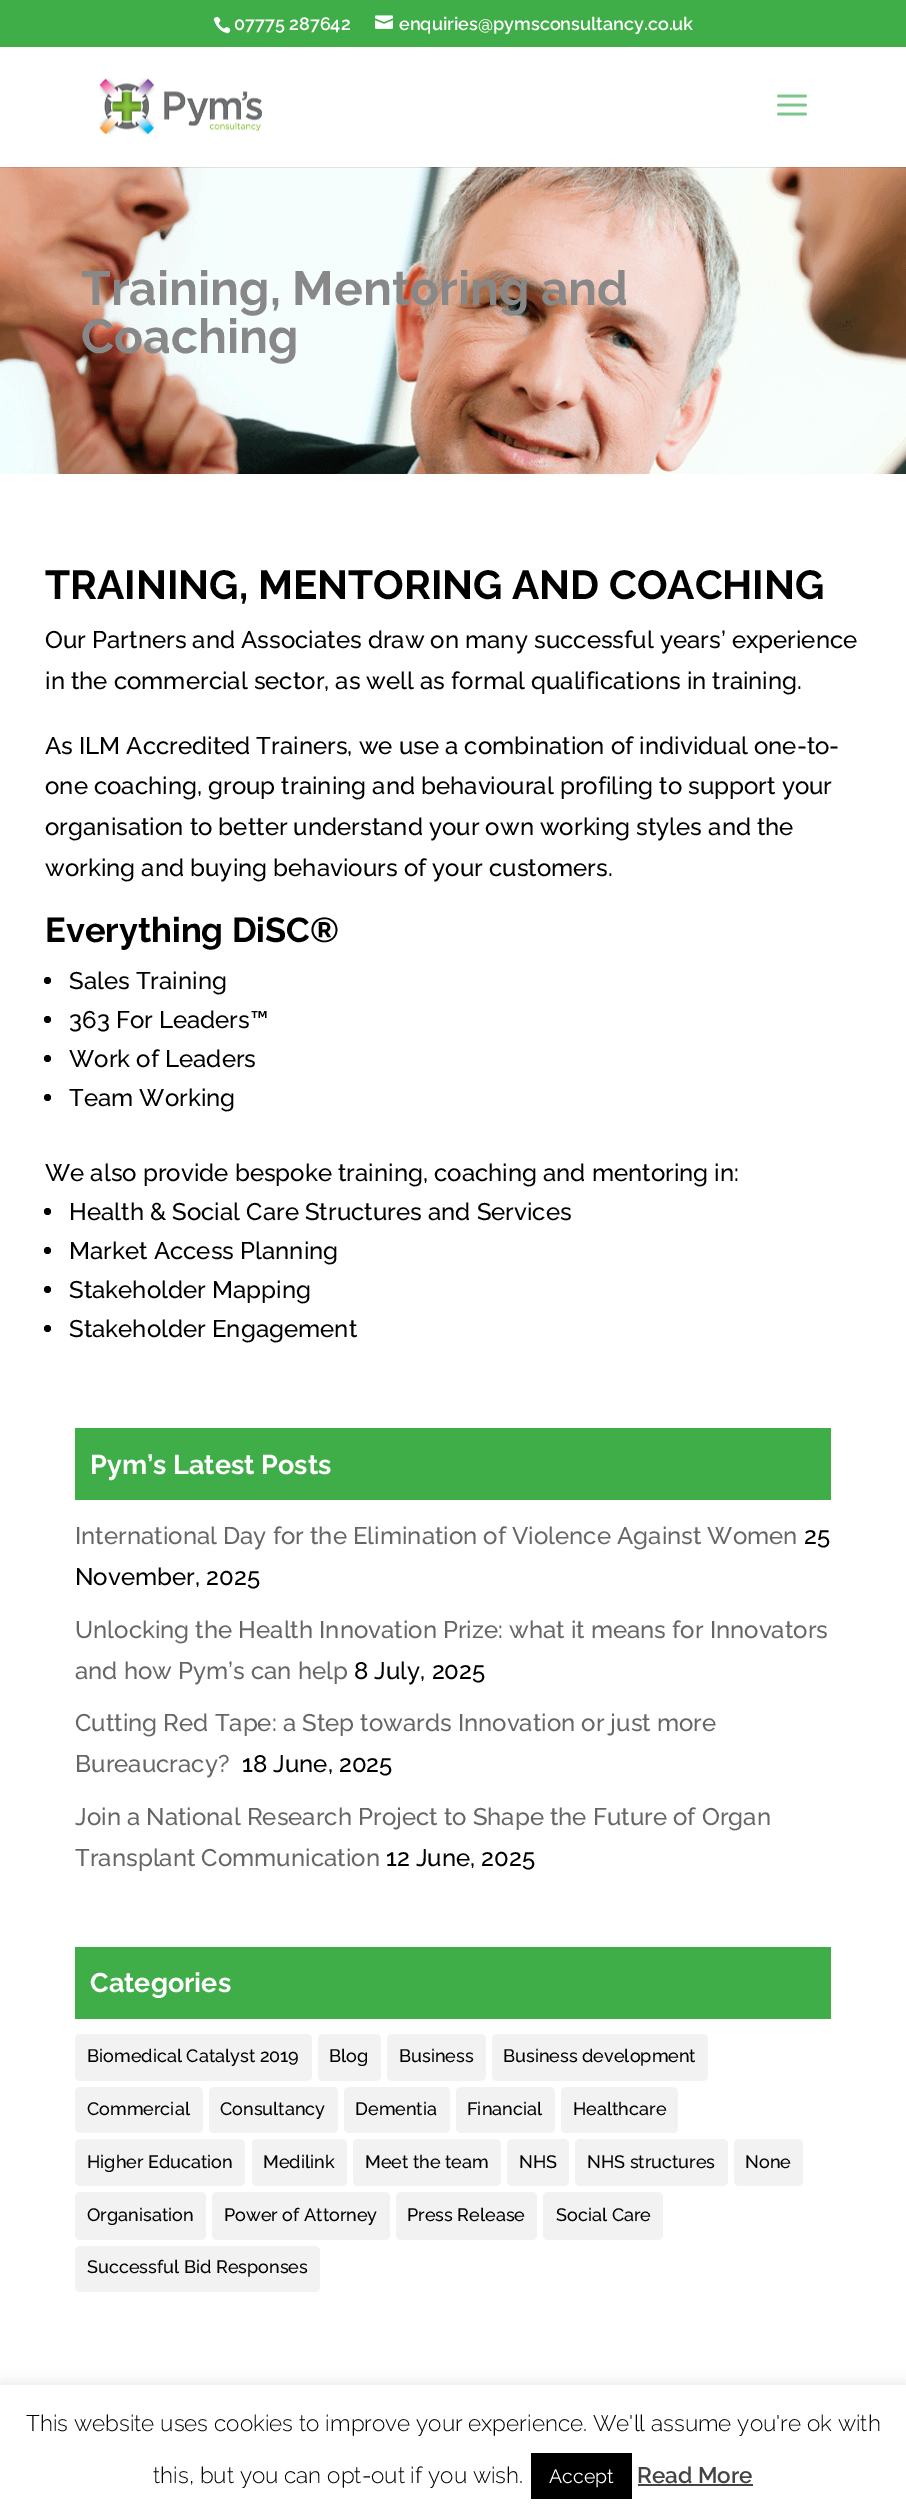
%!PS
<< /PageSize [906 2517] /PageUsesTransparency true >> setpagedevice
/rgb { dup -16 bitshift 255 div exch dup -8 bitshift 255 and 255 div exch 255 and 255 div setrgbcolor } def
/font { [ exch dup neg 0 0 3 -1 roll 0 0 ] selectfont } def
/text { moveto show } def
/alpha { dup .setfillconstantalpha .setstrokeconstantalpha } def
/circle { newpath 0 360 arc closepath } def
/roundrect { 5 dict begin { /r /h /w /y /x } { exch def } forall
  x r add y moveto x w add y 2 copy h add r arct x w add y h add x 1 index r arct
  x y h add x y r arct x y 2 copy exch w add exch r arct closepath end } def
/shadow { 12 dict begin { /a /b /q /h /w /y /x } { exch def } forall gsave /was 0 def
  9 -2 -9 { dup b mul 4 div /e exch def 1 sub .425 mul 2.718 exch exp 1 add a .99 .min exch div /now exch def
    1 1 now sub 1 was sub div sub alpha /was now def
    w h .min e 2 mul add 0 gt { x e sub y e sub w e 2 mul add h e 2 mul add
      q e add b .6 mul add w h .min 2 div e add .min 0 .max roundrect fill } if } for grestore end } def
/picture { 5 dict begin { /h /w /y /x /name } { exch def } forall
  gsave x y translate w h scale
  w h 8 [w 0 0 h 0 0] name (r) file false 3 colorimage grestore end } def
0 .pushpdf14devicefilter
0 2517 translate 1 -1 scale
4 setmiterlimit
/s1 { /Raleway-SemiBold 18 font 16#FFFFFF rgb } def
/s2 { /Raleway-Bold 48 font 16#888888 rgb } def
/s3 { /Raleway-Bold 40.5 font 16#000000 rgb } def
/s4 { /Raleway-Medium 24 font 16#000000 rgb } def
/s5 { /Raleway-Bold 34.5 font 16#000000 rgb } def
/s6 { /Raleway-Bold 27 font 16#FFFFFF rgb } def
/s7 { /Raleway-Medium 24 font 16#666666 rgb } def
/s8 { /Raleway-Medium 18 font 16#000000 rgb } def
/s9 { /Raleway-Light 22.5 font 16#000000 rgb } def
/s10 { /Raleway-Regular 19.5 font 16#FFFFFF rgb } def
/s11 { /Raleway-SemiBold 22.5 font 16#444444 rgb } def
16#FFFFFF rgb
0 0 906 2517 rectfill
16#3FAD48 rgb
0 0 906 47 rectfill
(pic1.raw) 213 16 18 18 picture
s1
(07775 287642) 234 30 text
(pic2.raw) 375 15 18 14 picture
(enquiries@pymsconsultancy.co.uk) 399 30 text
(pic5.raw) 0 167 906 307 picture
0.1 alpha
16#000000 rgb
0 167 906 1 rectfill
1 alpha
(pic3.raw) 99 78 163 57 picture
(pic4.raw) 777 94 30 22 picture
s2
(Training, Mentoring and) 81 305 text
(Coaching) 81 353 text
s3
(TRAINING, MENTORING AND COACHING) 45 599 text
s4
(Our Partners and Associates draw on many successful years’ experience) 45 648 text
(in the commercial sector, as well as formal qualifications in training.) 45 689 text
(As ILM Accredited Trainers, we use a combination of individual one-to-) 45 754 text
(one coaching, group training and behavioural profiling to support your) 45 794 text
(organisation to better understand your own working styles and the) 45 835 text
(working and buying behaviours of your customers.) 45 876 text
s5
(Everything DiSC®) 45 942 text
47.5 980.5 3.5 circle fill
s4
(Sales Training) 69 989 text
47.5 1019.5 3.5 circle fill
(363 For Leaders™) 69 1028 text
47.5 1058.5 3.5 circle fill
(Work of Leaders) 69 1067 text
47.5 1097.5 3.5 circle fill
(Team Working) 69 1106 text
(We also provide bespoke training, coaching and mentoring in:) 45 1181 text
47.5 1211.5 3.5 circle fill
(Health & Social Care Structures and Services) 69 1220 text
47.5 1250.5 3.5 circle fill
(Market Access Planning) 69 1259 text
47.5 1289.5 3.5 circle fill
(Stakeholder Mapping) 69 1298 text
47.5 1328.5 3.5 circle fill
(Stakeholder Engagement) 69 1337 text
16#3FAD48 rgb
75 1428 756 72 rectfill
s6
(Pym’s Latest Posts) 90 1474 text
s7
(International Day for the Elimination of Violence Against Women) 75 1544 text
s4
(25) 804 1544 text
(November, 2025) 75 1585 text
s7
(Unlocking the Health Innovation Prize: what it means for Innovators) 75 1638 text
(and how Pym’s can help) 75 1679 text
s4
(8 July, 2025) 354 1679 text
s7
(Cutting Red Tape: a Step towards Innovation or just more) 75 1731 text
(Bureaucracy?) 75 1772 text
s4
(18 June, 2025) 242 1772 text
s7
(Join a National Research Project to Shape the Future of Organ) 75 1825 text
(Transplant Communication) 75 1866 text
s4
(12 June, 2025) 386 1866 text
16#3FAD48 rgb
75 1947 756 72 rectfill
s6
(Categories) 90 1992 text
16#F2F2F2 rgb
75 2034 237 47 5 roundrect fill
s8
(Biomedical Catalyst 2019) 87 2062 text
16#F2F2F2 rgb
318 2034 63 47 5 roundrect fill
s8
(Blog) 329 2062 text
16#F2F2F2 rgb
387 2034 99 47 5 roundrect fill
s8
(Business) 399 2062 text
16#F2F2F2 rgb
492 2034 216 47 5 roundrect fill
s8
(Business development) 503 2062 text
16#F2F2F2 rgb
75 2087 128 46 5 roundrect fill
s8
(Commercial) 87 2115 text
16#F2F2F2 rgb
209 2087 129 46 5 roundrect fill
s8
(Consultancy) 220 2115 text
16#F2F2F2 rgb
344 2087 106 46 5 roundrect fill
s8
(Dementia) 355 2115 text
16#F2F2F2 rgb
456 2087 99 46 5 roundrect fill
s8
(Financial) 467 2115 text
16#F2F2F2 rgb
561 2087 117 46 5 roundrect fill
s8
(Healthcare) 573 2115 text
16#F2F2F2 rgb
75 2139 170 47 5 roundrect fill
s8
(Higher Education) 87 2168 text
16#F2F2F2 rgb
252 2139 95 47 5 roundrect fill
s8
(Medilink) 263 2168 text
16#F2F2F2 rgb
353 2139 148 47 5 roundrect fill
s8
(Meet the team) 365 2168 text
16#F2F2F2 rgb
507 2139 62 47 5 roundrect fill
s8
(NHS) 519 2168 text
16#F2F2F2 rgb
575 2139 153 47 5 roundrect fill
s8
(NHS structures) 587 2168 text
16#F2F2F2 rgb
734 2139 69 47 5 roundrect fill
s8
(None) 745 2168 text
16#F2F2F2 rgb
75 2192 131 48 5 roundrect fill
s8
(Organisation) 87 2221 text
16#F2F2F2 rgb
212 2192 178 48 5 roundrect fill
s8
(Power of Attorney) 224 2221 text
16#F2F2F2 rgb
396 2192 141 48 5 roundrect fill
s8
(Press Release) 407 2221 text
16#F2F2F2 rgb
543 2192 120 48 5 roundrect fill
s8
(Social Care) 556 2221 text
16#F2F2F2 rgb
75 2246 245 46 5 roundrect fill
s8
(Successful Bid Responses) 87 2273 text
16#ACABAB rgb
0 2384 906 132 0 7.5 0.3 shadow
16#FFFFFF rgb
0 2385 906 132 rectfill
s9
(This website uses cookies to improve your experience. We'll assume you're ok with) 26 2431 text
(this, but you can opt-out if you wish.) 153 2483 text
531 2453 101 46 rectfill
s10
(Accept) 549 2483 text
s11
(Read More) 637 2483 text
638 2484 115 2 rectfill
.poppdf14devicefilter showpage
